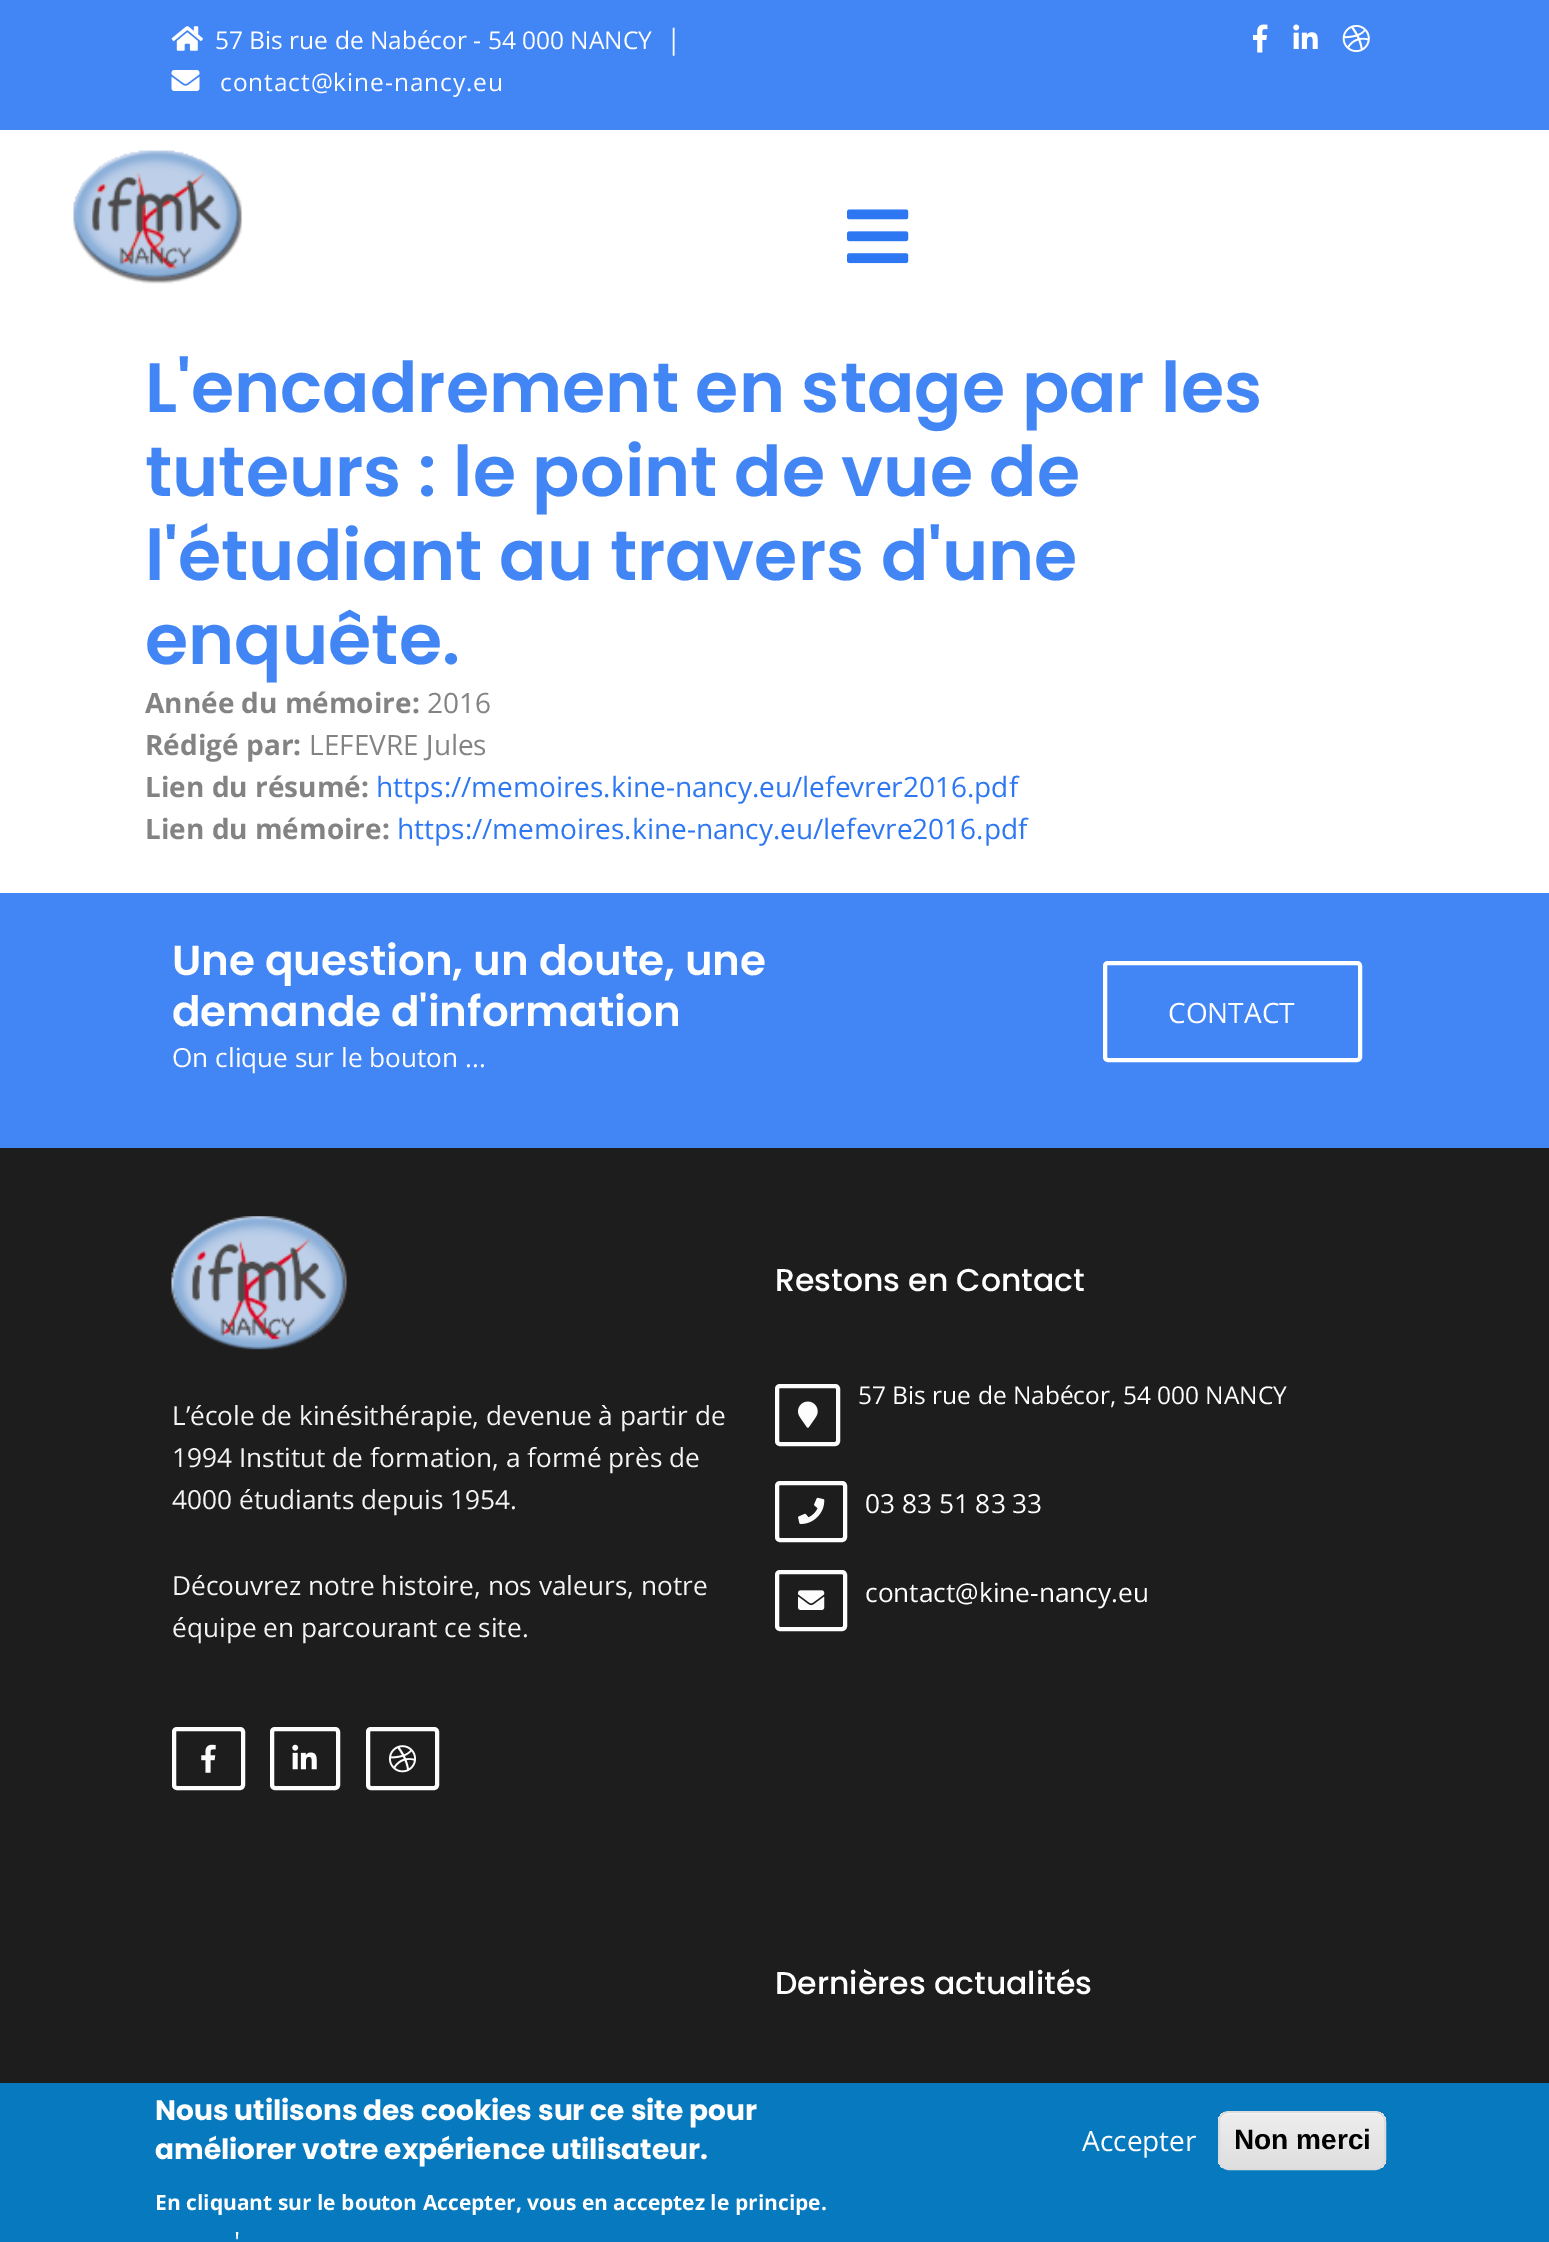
%!PS
<< /PageSize [1549 2242] >> setpagedevice
/rgb { dup -16 bitshift 255 div exch dup -8 bitshift 255 and 255 div exch 255 and 255 div setrgbcolor } def
/font { [ exch dup neg 0 0 3 -1 roll 0 0 ] selectfont } def
/text { moveto show } def
/roundrect { 5 dict begin { /r /h /w /y /x } { exch def } forall
  x r add y moveto x w add y 2 copy h add r arct x w add y h add x 1 index r arct
  x y h add x y r arct x y 2 copy exch w add exch r arct closepath end } def
/picture { 5 dict begin { /h /w /y /x /name } { exch def } forall
  gsave x y translate w h scale
  w h 8 [w 0 0 h 0 0] name (r) file false 3 colorimage grestore end } def
0 2242 translate 1 -1 scale
4 setmiterlimit
/s1 { /OpenSans-Regular 24.5 font 16#FFFFFF rgb } def
/s2 { /OpenSans-Regular 28 font 16#FFFFFF rgb } def
/s3 { /Poppins-SemiBold 70 font 16#4285F4 rgb } def
/s4 { /OpenSans-Bold 28 font 16#838383 rgb } def
/s5 { /OpenSans-Regular 28 font 16#838383 rgb } def
/s6 { /OpenSans-Regular 28 font 16#2D77F3 rgb } def
/s7 { /Poppins-SemiBold 42 font 16#FFFFFF rgb } def
/s8 { /OpenSans-Regular 26.25 font 16#FFFFFF rgb } def
/s9 { /OpenSans-Regular 26.25 font 16#F4F4F4 rgb } def
/s10 { /Poppins-Medium 31.5 font 16#FFFFFF rgb } def
/s11 { /Poppins-Bold 28 font 16#FFFFFF rgb } def
/s12 { /OpenSans-Bold 21 font 16#FFFFFF rgb } def
/s13 { /LiberationSans-Bold 28 font 16#000000 rgb } def
16#FFFFFF rgb
0 0 1549 2242 rectfill
16#4285F4 rgb
0 0 1549 130 rectfill
(pic1.raw) 171 26 32 25 picture
s1
(57 Bis rue de Nabécor - 54 000 NANCY) 215 49 text
s2
(|) 666 49 text
(pic2.raw) 171 70 29 21 picture
/OpenSans-Regular 24.5 font
220 91 moveto 0.9 0 (contact@kine-nancy.eu) ashow
(pic3.raw) 1253 24 15 29 picture
(pic4.raw) 1293 24 25 25 picture
(pic5.raw) 1342 24 28 29 picture
(pic6.raw) 73 150 169 134 picture
(pic7.raw) 847 209 62 55 picture
s3
(L'encadrement en stage par les) 145 412 text
(tuteurs : le point de vue de) 145 496 text
(l'étudiant au travers d'une) 145 580 text
(enquête.) 145 664 text
s4
(Année du mémoire:) 145 713 text
s5
(2016) 427 713 text
s4
(Rédigé par:) 145 755 text
s5
(LEFEVRE Jules) 309 755 text
s4
(Lien du résumé:) 145 797 text
s6
(https://memoires.kine-nancy.eu/lefevrer2016.pdf) 376 797 text
s4
(Lien du mémoire:) 145 839 text
s6
(https://memoires.kine-nancy.eu/lefevre2016.pdf) 397 839 text
16#4285F4 rgb
0 893 1549 255 rectfill
s7
(Une question, un doute, une) 172 975 text
(demande d'information) 172 1026 text
s8
(On clique sur le bouton ...) 172 1067 text
4 setlinewidth
1105 963 255 97 3 roundrect stroke
s2
(CONTACT) 1168 1023 text
16#1D1D1D rgb
0 1148 1549 935 rectfill
(pic8.raw) 171 1216 176 134 picture
s9
(L’école de kinésithérapie, devenue à partir de) 172 1425 text
(1994 Institut de formation, a formé près de) 172 1467 text
(4000 étudiants depuis 1954.) 172 1509 text
(Découvrez notre histoire, nos valeurs, notre) 172 1595 text
(équipe en parcourant ce site.) 172 1637 text
16#FDFDFD rgb
174 1729 69 59 3 roundrect stroke
(pic9.raw) 201 1744 15 29 picture
272 1729 66 59 3 roundrect stroke
(pic10.raw) 292 1744 25 26 picture
368 1729 69 59 3 roundrect stroke
(pic11.raw) 388 1745 29 28 picture
s10
(Restons en Contact) 775 1291 text
16#FDFDFD rgb
777 1386 61 58 3 roundrect stroke
(pic12.raw) 798 1401 20 27 picture
s1
(57 Bis rue de Nabécor, 54 000 NANCY) 858 1404 text
16#FDFDFD rgb
777 1483 68 57 3 roundrect stroke
(pic13.raw) 798 1497 27 27 picture
s8
(03 83 51 83 33) 865 1513 text
16#FDFDFD rgb
777 1572 68 57 3 roundrect stroke
(pic14.raw) 798 1590 27 20 picture
s8
(contact@kine-nancy.eu) 865 1602 text
s10
(Dernières actualités) 775 1994 text
16#0779BF rgb
0 2083 1549 159 rectfill
s11
(Nous utilisons des cookies sur ce site pour) 155 2120 text
(améliorer votre expérience utilisateur.) 155 2159 text
s12
(En cliquant sur le bouton Accepter, vous en acceptez le principe.) 155 2210 text
s2
(') 234 2252 text
(Accepter) 1082 2151 text
gsave
1218 2111 168 59 11 roundrect clip newpath
gsave 1218 2112 moveto 1386 2112 lineto 1386 2168 lineto 1218 2168 lineto closepath clip newpath
<< /ShadingType 2 /ColorSpace /DeviceRGB /Coords [1302 2112 1302 2168] /Extend [true true] /Function << /FunctionType 3 /Domain [0 1] /Functions [<< /FunctionType 2 /Domain [0 1] /C0 [0.929 0.929 0.929] /C1 [0.929 0.929 0.929] /N 1 >> << /FunctionType 2 /Domain [0 1] /C0 [0.929 0.929 0.929] /C1 [0.875 0.875 0.875] /N 1 >>] /Bounds [0.05] /Encode [0 1 0 1] >> >> shfill grestore
grestore
1228 2114 moveto 1376 2114 lineto 1380 2114 1384 2118 1384 2123 curveto 1384 2121 lineto 1384 2116 1380 2112 1375 2112 curveto 1229 2112 lineto 1224 2112 1220 2116 1220 2121 curveto 1220 2123 lineto 1220 2118 1224 2114 1228 2114 curveto closepath fill
16#DCDCDC rgb
2 setlinewidth
1219 2112 166 57 10 roundrect stroke
s13
(Non merci) 1234 2149 text
showpage
